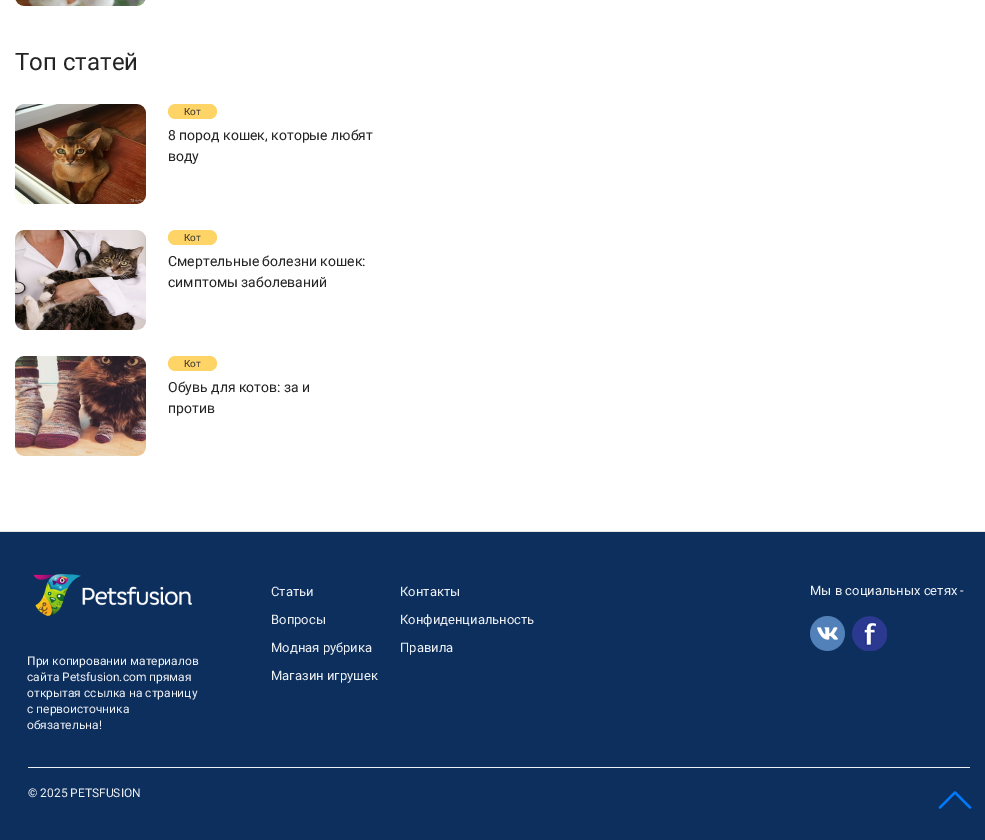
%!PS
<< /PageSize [985 840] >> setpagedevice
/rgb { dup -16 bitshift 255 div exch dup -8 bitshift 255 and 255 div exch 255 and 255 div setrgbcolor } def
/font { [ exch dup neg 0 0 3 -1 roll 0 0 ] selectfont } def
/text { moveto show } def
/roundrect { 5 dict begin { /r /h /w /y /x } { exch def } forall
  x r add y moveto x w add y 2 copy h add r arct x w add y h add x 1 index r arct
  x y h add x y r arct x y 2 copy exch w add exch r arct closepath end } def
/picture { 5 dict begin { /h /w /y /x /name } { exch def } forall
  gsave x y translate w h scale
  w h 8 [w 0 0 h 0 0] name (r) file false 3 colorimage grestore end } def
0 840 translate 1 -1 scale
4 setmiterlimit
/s1 { /Roboto-Regular 24 font 16#242424 rgb } def
/s2 { /Roboto-Regular 10 font 16#323232 rgb } def
/s3 { /Roboto-Regular 14 font 16#242424 rgb } def
/s4 { /Roboto-Regular 13 font 16#EEF1F4 rgb } def
/s5 { /Roboto-Regular 12 font 16#EEF1F4 rgb } def
16#FFFFFF rgb
0 0 985 840 rectfill
16#E5E5E5 rgb
0 531 985 1 rectfill
(pic1.raw) 15 0 131 6 picture
s1
(Топ статей) 15 70 text
(pic2.raw) 15 104 131 100 picture
16#FFD467 rgb
168 104 49 15 7.5 roundrect fill
s2
(Кот) 184 115 text
s3
(8 пород кошек, которые любят) 168 140 text
(воду) 168 161 text
(pic3.raw) 15 230 131 100 picture
16#FFD467 rgb
168 230 49 15 7.5 roundrect fill
s2
(Кот) 184 241 text
s3
(Смертельные болезни кошек:) 168 266 text
(симптомы заболеваний) 168 287 text
(pic4.raw) 15 356 131 100 picture
16#FFD467 rgb
168 356 49 15 7.5 roundrect fill
s2
(Кот) 184 367 text
s3
(Обувь для котов: за и) 168 392 text
(против) 168 413 text
16#0D2F5E rgb
0 532 985 308 rectfill
s4
(Статьи) 271 596 text
(Вопросы) 271 624 text
(Модная рубрика) 271 652 text
(Магазин игрушек) 271 680 text
(Контакты) 400 596 text
(Конфиденциальность) 400 624 text
(Правила) 400 652 text
(pic5.raw) 33 574 159 42 picture
s5
(При копировании материалов) 27 665 text
(сайта Petsfusion.com прямая) 27 681 text
(открытая ссылка на страницу) 27 697 text
(с первоисточника) 27 713 text
(обязательна!) 27 729 text
s4
(Мы в социальных сетях -) 810 595 text
(pic6.raw) 810 616 35 35 picture
(pic7.raw) 852 616 35 35 picture
28 767 942 1 rectfill
s5
(© 2025 PETSFUSION) 28 797 text
(pic8.raw) 938 791 34 18 picture
showpage
